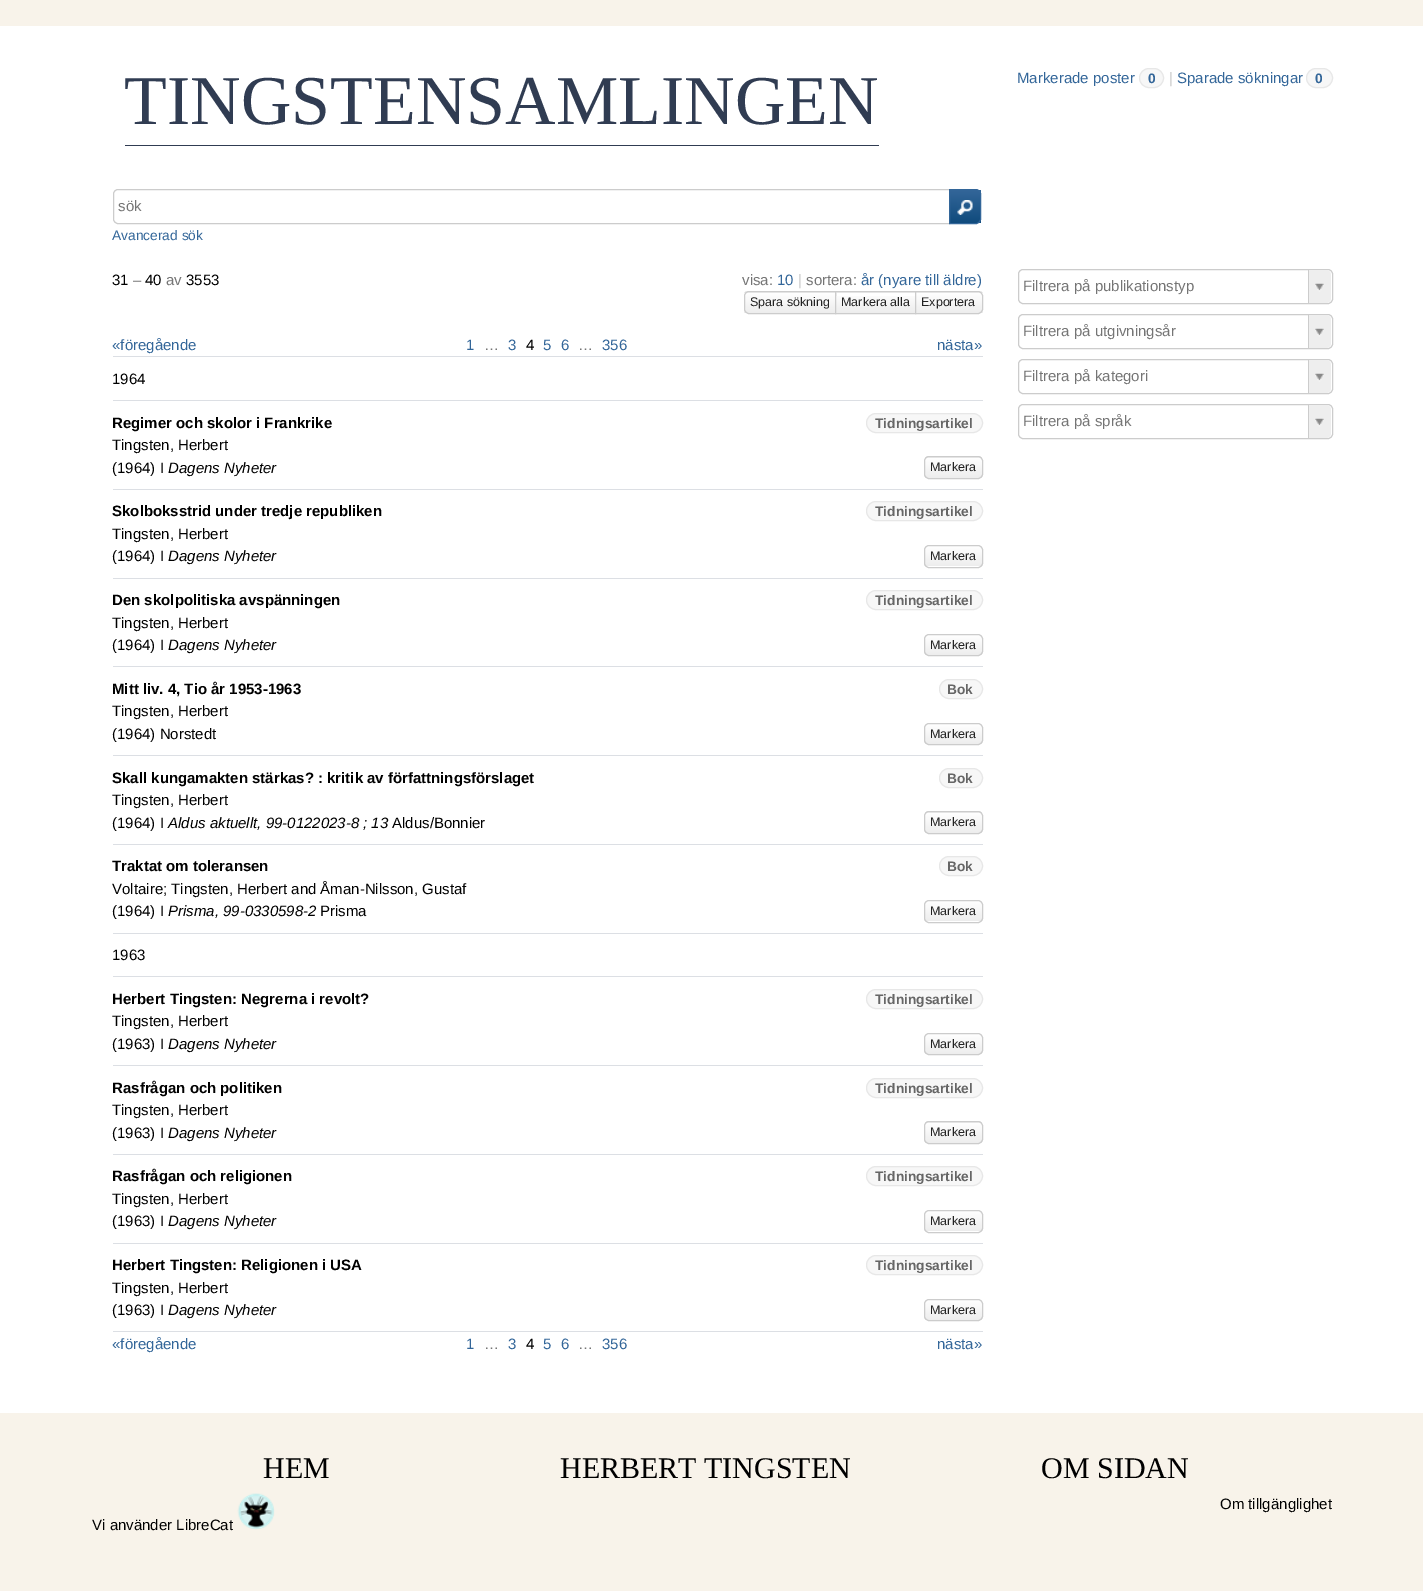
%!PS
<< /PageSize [1423 1591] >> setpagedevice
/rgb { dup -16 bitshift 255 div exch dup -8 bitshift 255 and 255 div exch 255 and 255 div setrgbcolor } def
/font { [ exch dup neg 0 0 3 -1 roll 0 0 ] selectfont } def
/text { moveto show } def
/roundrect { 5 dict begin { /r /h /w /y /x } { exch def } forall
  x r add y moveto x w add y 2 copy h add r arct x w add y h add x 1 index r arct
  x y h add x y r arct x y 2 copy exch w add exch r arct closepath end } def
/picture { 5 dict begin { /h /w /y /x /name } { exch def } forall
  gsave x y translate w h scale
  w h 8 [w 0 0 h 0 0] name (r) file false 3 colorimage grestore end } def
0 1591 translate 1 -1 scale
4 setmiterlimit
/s1 { /LiberationSerif-Regular 70 font 16#303C52 rgb } def
/s2 { /LiberationSans-Regular 15 font 16#336699 rgb } def
/s3 { /LiberationSans-Bold 13.75 font 16#336699 rgb } def
/s4 { /LiberationSans-Regular 15 font 16#CCCCCC rgb } def
/s5 { /LiberationSans-Regular 15 font 16#757575 rgb } def
/s6 { /LiberationSans-Regular 13.75 font 16#336699 rgb } def
/s7 { /LiberationSans-Regular 15 font 16#000000 rgb } def
/s8 { /LiberationSans-Regular 12.5 font 16#222222 rgb } def
/s9 { /LiberationSans-Bold 15 font 16#000000 rgb } def
/s10 { /LiberationSans-Bold 13.75 font 16#666666 rgb } def
/s11 { /LiberationSans-Italic 15 font 16#000000 rgb } def
/s12 { /LiberationSerif-Regular 30 font 16#000000 rgb } def
16#FFFFFF rgb
0 0 1423 1591 rectfill
16#F8F3EA rgb
0 0 1423 26 rectfill
s1
(TINGSTENSAMLINGEN) 124 124 text
125 145 754 1 rectfill
s2
(Markerade poster) 1017 83 text
16#F7F7F7 rgb
1139.5 68.5 24 19 9.5 roundrect gsave fill grestore
16#E7E7E7 rgb
stroke
s3
(0) 1148 83 text
s4
(|) 1169 83 text
s2
(Sparade sökningar) 1177 83 text
16#F7F7F7 rgb
1306.5 68.5 26 19 9.5 roundrect gsave fill grestore
16#E7E7E7 rgb
stroke
s3
(0) 1315 83 text
16#CCCCCC rgb
118 189.5 moveto 949.5 189.5 lineto 949.5 223.5 lineto 118 223.5 lineto 115.5 223.5 113.5 221.5 113.5 219 curveto 113.5 194 lineto 113.5 191.5 115.5 189.5 118 189.5 curveto closepath stroke
s5
(sök) 118 211 text
gsave
949 189 moveto 976 189 lineto 979 189 981 191 981 194 curveto 981 219 lineto 981 222 979 224 976 224 curveto 949 224 lineto closepath clip newpath
gsave 950 190 moveto 981 190 lineto 981 223 lineto 950 223 lineto closepath clip newpath
<< /ShadingType 2 /ColorSpace /DeviceRGB /Coords [950 190 950 223] /Extend [true true] /Function << /FunctionType 2 /Domain [0 1] /C0 [0.2 0.4 0.6] /C1 [0.063 0.294 0.49] /N 1 >> >> shfill grestore
grestore
16#336699 rgb
949.5 189.5 moveto 976 189.5 lineto 978.5 189.5 980.5 191.5 980.5 194 curveto 980.5 219 lineto 980.5 221.5 978.5 223.5 976 223.5 curveto 949.5 223.5 lineto closepath stroke
(pic1.raw) 957 200 16 15 picture
s6
(Avancerad sök) 112 240 text
s7
(31) 112 285 text
s5
(–) 133 285 text
s7
(40) 145 285 text
s5
(av) 166 285 text
s7
(3553) 186 285 text
s5
(visa:) 742 285 text
s2
(10) 777 285 text
s4
(|) 798 285 text
s5
(sortera:) 806 285 text
s2
(år \(nyare till äldre\)) 861 285 text
gsave
749 291 moveto 836 291 lineto 836 314 lineto 749 314 lineto 746 314 744 312 744 309 curveto 744 296 lineto 744 293 746 291 749 291 curveto closepath clip newpath
gsave 744 291 moveto 836 291 lineto 836 293 lineto 744 293 lineto closepath clip newpath
<< /ShadingType 2 /ColorSpace /DeviceRGB /Coords [745 273 745 293] /Extend [true true] /Function << /FunctionType 2 /Domain [0 1] /C0 [1 1 1] /C1 [0.929 0.929 0.929] /N 1 >> >> shfill grestore
gsave 744 293 moveto 835 293 lineto 835 313 lineto 744 313 lineto closepath clip newpath
<< /ShadingType 2 /ColorSpace /DeviceRGB /Coords [745 293 745 313] /Extend [true true] /Function << /FunctionType 2 /Domain [0 1] /C0 [1 1 1] /C1 [0.929 0.929 0.929] /N 1 >> >> shfill grestore
grestore
16#CCCCCC rgb
749 291.5 moveto 835.5 291.5 lineto 835.5 313.5 lineto 749 313.5 lineto 746.5 313.5 744.5 311.5 744.5 309 curveto 744.5 296 lineto 744.5 293.5 746.5 291.5 749 291.5 curveto closepath stroke
s8
(Spara sökning) 750 306 text
gsave 835 292 moveto 916 292 lineto 916 293 lineto 835 293 lineto closepath clip newpath
<< /ShadingType 2 /ColorSpace /DeviceRGB /Coords [836 273 836 293] /Extend [true true] /Function << /FunctionType 2 /Domain [0 1] /C0 [1 1 1] /C1 [0.929 0.929 0.929] /N 1 >> >> shfill grestore
gsave 836 296 moveto 915 296 lineto 915 313 lineto 836 313 lineto closepath clip newpath
<< /ShadingType 2 /ColorSpace /DeviceRGB /Coords [836 293 836 313] /Extend [true true] /Function << /FunctionType 2 /Domain [0 1] /C0 [1 1 1] /C1 [0.929 0.929 0.929] /N 1 >> >> shfill grestore
16#CCCCCC rgb
835.5 291.5 80 22 rectstroke
s8
(Markera alla) 841 306 text
gsave
915 291 moveto 978 291 lineto 981 291 983 293 983 296 curveto 983 309 lineto 983 312 981 314 978 314 curveto 915 314 lineto closepath clip newpath
gsave 915 291 moveto 983 291 lineto 983 293 lineto 915 293 lineto closepath clip newpath
<< /ShadingType 2 /ColorSpace /DeviceRGB /Coords [916 273 916 293] /Extend [true true] /Function << /FunctionType 2 /Domain [0 1] /C0 [1 1 1] /C1 [0.929 0.929 0.929] /N 1 >> >> shfill grestore
gsave 916 293 moveto 983 293 lineto 983 313 lineto 916 313 lineto closepath clip newpath
<< /ShadingType 2 /ColorSpace /DeviceRGB /Coords [916 293 916 313] /Extend [true true] /Function << /FunctionType 2 /Domain [0 1] /C0 [1 1 1] /C1 [0.929 0.929 0.929] /N 1 >> >> shfill grestore
grestore
16#CCCCCC rgb
915.5 291.5 moveto 978 291.5 lineto 980.5 291.5 982.5 293.5 982.5 296 curveto 982.5 309 lineto 982.5 311.5 980.5 313.5 978 313.5 curveto 915.5 313.5 lineto closepath stroke
s8
(Exportera) 921 306 text
s2
(«föregående) 112 350 text
(1) 466 350 text
s5
(…) 484 350 text
s2
(3) 508 350 text
s7
(4) 526 350 text
s2
(5) 543 350 text
(6) 561 350 text
s5
(…) 578 350 text
s2
(356) 602 350 text
(nästa») 937 350 text
16#DCDFE4 rgb
113 356 870 1 rectfill
113 400 870 1 rectfill
s7
(1964) 112 384 text
16#DCDFE4 rgb
113 489 870 1 rectfill
s9
(Regimer och skolor i Frankrike) 112 428 text
16#F7F7F7 rgb
866.5 413.5 116 19 9.5 roundrect gsave fill grestore
16#E7E7E7 rgb
stroke
s10
(Tidningsartikel) 875 428 text
s7
(Tingsten, Herbert) 112 450 text
(\(1964\) I) 112 473 text
s11
(Dagens Nyheter) 168 473 text
gsave
924 456 59 23 5 roundrect clip newpath
gsave 924 456 moveto 983 456 lineto 983 458 lineto 924 458 lineto closepath clip newpath
<< /ShadingType 2 /ColorSpace /DeviceRGB /Coords [925 438 925 458] /Extend [true true] /Function << /FunctionType 2 /Domain [0 1] /C0 [1 1 1] /C1 [0.929 0.929 0.929] /N 1 >> >> shfill grestore
gsave 924 458 moveto 983 458 lineto 983 478 lineto 924 478 lineto closepath clip newpath
<< /ShadingType 2 /ColorSpace /DeviceRGB /Coords [925 458 925 478] /Extend [true true] /Function << /FunctionType 2 /Domain [0 1] /C0 [1 1 1] /C1 [0.929 0.929 0.929] /N 1 >> >> shfill grestore
grestore
16#CCCCCC rgb
924.5 456.5 58 22 4.5 roundrect stroke
s8
(Markera) 930 471 text
16#DCDFE4 rgb
113 578 870 1 rectfill
s9
(Skolboksstrid under tredje republiken) 112 516 text
16#F7F7F7 rgb
866.5 501.5 116 19 9.5 roundrect gsave fill grestore
16#E7E7E7 rgb
stroke
s10
(Tidningsartikel) 875 516 text
s7
(Tingsten, Herbert) 112 539 text
(\(1964\) I) 112 561 text
s11
(Dagens Nyheter) 168 561 text
gsave
924 545 59 23 5 roundrect clip newpath
gsave 924 546 moveto 983 546 lineto 983 566 lineto 924 566 lineto closepath clip newpath
<< /ShadingType 2 /ColorSpace /DeviceRGB /Coords [925 546 925 566] /Extend [true true] /Function << /FunctionType 2 /Domain [0 1] /C0 [1 1 1] /C1 [0.929 0.929 0.929] /N 1 >> >> shfill grestore
grestore
16#CCCCCC rgb
924.5 545.5 58 22 4.5 roundrect stroke
s8
(Markera) 930 560 text
16#DCDFE4 rgb
113 666 870 1 rectfill
s9
(Den skolpolitiska avspänningen) 112 605 text
16#F7F7F7 rgb
866.5 590.5 116 19 9.5 roundrect gsave fill grestore
16#E7E7E7 rgb
stroke
s10
(Tidningsartikel) 875 605 text
s7
(Tingsten, Herbert) 112 628 text
(\(1964\) I) 112 650 text
s11
(Dagens Nyheter) 168 650 text
gsave
924 634 59 22 5 roundrect clip newpath
gsave 924 635 moveto 983 635 lineto 983 655 lineto 924 655 lineto closepath clip newpath
<< /ShadingType 2 /ColorSpace /DeviceRGB /Coords [925 635 925 655] /Extend [true true] /Function << /FunctionType 2 /Domain [0 1] /C0 [1 1 1] /C1 [0.929 0.929 0.929] /N 1 >> >> shfill grestore
grestore
16#CCCCCC rgb
924.5 634.5 58 21 4.5 roundrect stroke
s8
(Markera) 930 649 text
16#DCDFE4 rgb
113 755 870 1 rectfill
s9
(Mitt liv. 4, Tio år 1953-1963) 112 694 text
16#F7F7F7 rgb
939.5 679.5 43 19 9.5 roundrect gsave fill grestore
16#E7E7E7 rgb
stroke
s10
(Bok) 947 694 text
s7
(Tingsten, Herbert) 112 716 text
(\(1964\) Norstedt) 112 739 text
gsave
924 723 59 22 5 roundrect clip newpath
gsave 924 724 moveto 983 724 lineto 983 744 lineto 924 744 lineto closepath clip newpath
<< /ShadingType 2 /ColorSpace /DeviceRGB /Coords [925 724 925 744] /Extend [true true] /Function << /FunctionType 2 /Domain [0 1] /C0 [1 1 1] /C1 [0.929 0.929 0.929] /N 1 >> >> shfill grestore
grestore
16#CCCCCC rgb
924.5 723.5 58 21 4.5 roundrect stroke
s8
(Markera) 930 738 text
16#DCDFE4 rgb
113 844 870 1 rectfill
s9
(Skall kungamakten stärkas? : kritik av författningsförslaget) 112 783 text
16#F7F7F7 rgb
939.5 768.5 43 19 9.5 roundrect gsave fill grestore
16#E7E7E7 rgb
stroke
s10
(Bok) 947 783 text
s7
(Tingsten, Herbert) 112 805 text
(\(1964\) I) 112 828 text
s11
(Aldus aktuellt, 99-0122023-8 ; 13) 168 828 text
s7
(Aldus/Bonnier) 392 828 text
gsave
924 811 59 23 5 roundrect clip newpath
gsave 924 811 moveto 983 811 lineto 983 813 lineto 924 813 lineto closepath clip newpath
<< /ShadingType 2 /ColorSpace /DeviceRGB /Coords [925 793 925 813] /Extend [true true] /Function << /FunctionType 2 /Domain [0 1] /C0 [1 1 1] /C1 [0.929 0.929 0.929] /N 1 >> >> shfill grestore
gsave 924 813 moveto 983 813 lineto 983 833 lineto 924 833 lineto closepath clip newpath
<< /ShadingType 2 /ColorSpace /DeviceRGB /Coords [925 813 925 833] /Extend [true true] /Function << /FunctionType 2 /Domain [0 1] /C0 [1 1 1] /C1 [0.929 0.929 0.929] /N 1 >> >> shfill grestore
grestore
16#CCCCCC rgb
924.5 811.5 58 22 4.5 roundrect stroke
s8
(Markera) 930 826 text
16#DCDFE4 rgb
113 933 870 1 rectfill
s9
(Traktat om toleransen) 112 871 text
16#F7F7F7 rgb
939.5 856.5 43 19 9.5 roundrect gsave fill grestore
16#E7E7E7 rgb
stroke
s10
(Bok) 947 871 text
s7
(Voltaire; Tingsten, Herbert and Åman-Nilsson, Gustaf) 112 894 text
(\(1964\) I) 112 916 text
s11
(Prisma, 99-0330598-2) 168 916 text
s7
(Prisma) 320 916 text
gsave
924 900 59 23 5 roundrect clip newpath
gsave 924 901 moveto 983 901 lineto 983 921 lineto 924 921 lineto closepath clip newpath
<< /ShadingType 2 /ColorSpace /DeviceRGB /Coords [925 901 925 921] /Extend [true true] /Function << /FunctionType 2 /Domain [0 1] /C0 [1 1 1] /C1 [0.929 0.929 0.929] /N 1 >> >> shfill grestore
grestore
16#CCCCCC rgb
924.5 900.5 58 22 4.5 roundrect stroke
s8
(Markera) 930 915 text
16#DCDFE4 rgb
113 976 870 1 rectfill
s7
(1963) 112 960 text
16#DCDFE4 rgb
113 1065 870 1 rectfill
s9
(Herbert Tingsten: Negrerna i revolt?) 112 1004 text
16#F7F7F7 rgb
866.5 989.5 116 19 9.5 roundrect gsave fill grestore
16#E7E7E7 rgb
stroke
s10
(Tidningsartikel) 875 1004 text
s7
(Tingsten, Herbert) 112 1026 text
(\(1963\) I) 112 1049 text
s11
(Dagens Nyheter) 168 1049 text
gsave
924 1033 59 22 5 roundrect clip newpath
gsave 924 1034 moveto 983 1034 lineto 983 1054 lineto 924 1054 lineto closepath clip newpath
<< /ShadingType 2 /ColorSpace /DeviceRGB /Coords [925 1034 925 1054] /Extend [true true] /Function << /FunctionType 2 /Domain [0 1] /C0 [1 1 1] /C1 [0.929 0.929 0.929] /N 1 >> >> shfill grestore
grestore
16#CCCCCC rgb
924.5 1033.5 58 21 4.5 roundrect stroke
s8
(Markera) 930 1048 text
16#DCDFE4 rgb
113 1154 870 1 rectfill
s9
(Rasfrågan och politiken) 112 1093 text
16#F7F7F7 rgb
866.5 1078.5 116 19 9.5 roundrect gsave fill grestore
16#E7E7E7 rgb
stroke
s10
(Tidningsartikel) 875 1093 text
s7
(Tingsten, Herbert) 112 1115 text
(\(1963\) I) 112 1138 text
s11
(Dagens Nyheter) 168 1138 text
gsave
924 1121 59 23 5 roundrect clip newpath
gsave 924 1121 moveto 983 1121 lineto 983 1123 lineto 924 1123 lineto closepath clip newpath
<< /ShadingType 2 /ColorSpace /DeviceRGB /Coords [925 1103 925 1123] /Extend [true true] /Function << /FunctionType 2 /Domain [0 1] /C0 [1 1 1] /C1 [0.929 0.929 0.929] /N 1 >> >> shfill grestore
gsave 924 1123 moveto 983 1123 lineto 983 1143 lineto 924 1143 lineto closepath clip newpath
<< /ShadingType 2 /ColorSpace /DeviceRGB /Coords [925 1123 925 1143] /Extend [true true] /Function << /FunctionType 2 /Domain [0 1] /C0 [1 1 1] /C1 [0.929 0.929 0.929] /N 1 >> >> shfill grestore
grestore
16#CCCCCC rgb
924.5 1121.5 58 22 4.5 roundrect stroke
s8
(Markera) 930 1136 text
16#DCDFE4 rgb
113 1243 870 1 rectfill
s9
(Rasfrågan och religionen) 112 1181 text
16#F7F7F7 rgb
866.5 1166.5 116 19 9.5 roundrect gsave fill grestore
16#E7E7E7 rgb
stroke
s10
(Tidningsartikel) 875 1181 text
s7
(Tingsten, Herbert) 112 1204 text
(\(1963\) I) 112 1226 text
s11
(Dagens Nyheter) 168 1226 text
gsave
924 1210 59 23 5 roundrect clip newpath
gsave 924 1211 moveto 983 1211 lineto 983 1231 lineto 924 1231 lineto closepath clip newpath
<< /ShadingType 2 /ColorSpace /DeviceRGB /Coords [925 1211 925 1231] /Extend [true true] /Function << /FunctionType 2 /Domain [0 1] /C0 [1 1 1] /C1 [0.929 0.929 0.929] /N 1 >> >> shfill grestore
grestore
16#CCCCCC rgb
924.5 1210.5 58 22 4.5 roundrect stroke
s8
(Markera) 930 1225 text
16#DCDFE4 rgb
113 1331 870 1 rectfill
s9
(Herbert Tingsten: Religionen i USA) 112 1270 text
16#F7F7F7 rgb
866.5 1255.5 116 19 9.5 roundrect gsave fill grestore
16#E7E7E7 rgb
stroke
s10
(Tidningsartikel) 875 1270 text
s7
(Tingsten, Herbert) 112 1293 text
(\(1963\) I) 112 1315 text
s11
(Dagens Nyheter) 168 1315 text
gsave
924 1299 59 22 5 roundrect clip newpath
gsave 924 1300 moveto 983 1300 lineto 983 1320 lineto 924 1320 lineto closepath clip newpath
<< /ShadingType 2 /ColorSpace /DeviceRGB /Coords [925 1300 925 1320] /Extend [true true] /Function << /FunctionType 2 /Domain [0 1] /C0 [1 1 1] /C1 [0.929 0.929 0.929] /N 1 >> >> shfill grestore
grestore
16#CCCCCC rgb
924.5 1299.5 58 21 4.5 roundrect stroke
s8
(Markera) 930 1314 text
s2
(«föregående) 112 1349 text
(1) 466 1349 text
s5
(…) 484 1349 text
s2
(3) 508 1349 text
s7
(4) 526 1349 text
s2
(5) 543 1349 text
(6) 561 1349 text
s5
(…) 578 1349 text
s2
(356) 602 1349 text
(nästa») 937 1349 text
16#CCCCCC rgb
1018.5 269.5 314 34 4.5 roundrect stroke
s5
(Filtrera på publikationstyp) 1023 291 text
gsave
1019 270 312 33 4 roundrect clip newpath
16#EEEEEE rgb
1308 270 moveto 1326 270 lineto 1329 270 1331 272 1331 275 curveto 1331 298 lineto 1331 301 1329 303 1326 303 curveto 1308 303 lineto closepath fill
grestore
16#CCCCCC rgb
1308 270 1 33 rectfill
(pic2.raw) 1315 283 9 9 picture
1018.5 314.5 314 34 4.5 roundrect stroke
s5
(Filtrera på utgivningsår) 1023 336 text
gsave
1019 315 312 33 4 roundrect clip newpath
16#EEEEEE rgb
1308 315 moveto 1326 315 lineto 1329 315 1331 317 1331 320 curveto 1331 343 lineto 1331 346 1329 348 1326 348 curveto 1308 348 lineto closepath fill
grestore
16#CCCCCC rgb
1308 315 1 33 rectfill
(pic2.raw) 1315 328 9 9 picture
1018.5 359.5 314 34 4.5 roundrect stroke
s5
(Filtrera på kategori) 1023 381 text
gsave
1019 360 312 33 4 roundrect clip newpath
16#EEEEEE rgb
1308 360 moveto 1326 360 lineto 1329 360 1331 362 1331 365 curveto 1331 388 lineto 1331 391 1329 393 1326 393 curveto 1308 393 lineto closepath fill
grestore
16#CCCCCC rgb
1308 360 1 33 rectfill
(pic2.raw) 1315 373 9 9 picture
1018.5 404.5 314 34 4.5 roundrect stroke
s5
(Filtrera på språk) 1023 426 text
gsave
1019 405 312 33 4 roundrect clip newpath
16#EEEEEE rgb
1308 405 moveto 1326 405 lineto 1329 405 1331 407 1331 410 curveto 1331 433 lineto 1331 436 1329 438 1326 438 curveto 1308 438 lineto closepath fill
grestore
16#CCCCCC rgb
1308 405 1 33 rectfill
(pic2.raw) 1315 418 9 9 picture
16#F8F3EA rgb
0 1413 1423 178 rectfill
s12
(HEM) 263 1478 text
(HERBERT TINGSTEN) 560 1478 text
(OM SIDAN) 1041 1478 text
(pic3.raw) 237 1493 38 37 picture
s7
(Om tillgänglighet) 1220 1509 text
(Vi använder LibreCat) 92 1530 text
showpage
